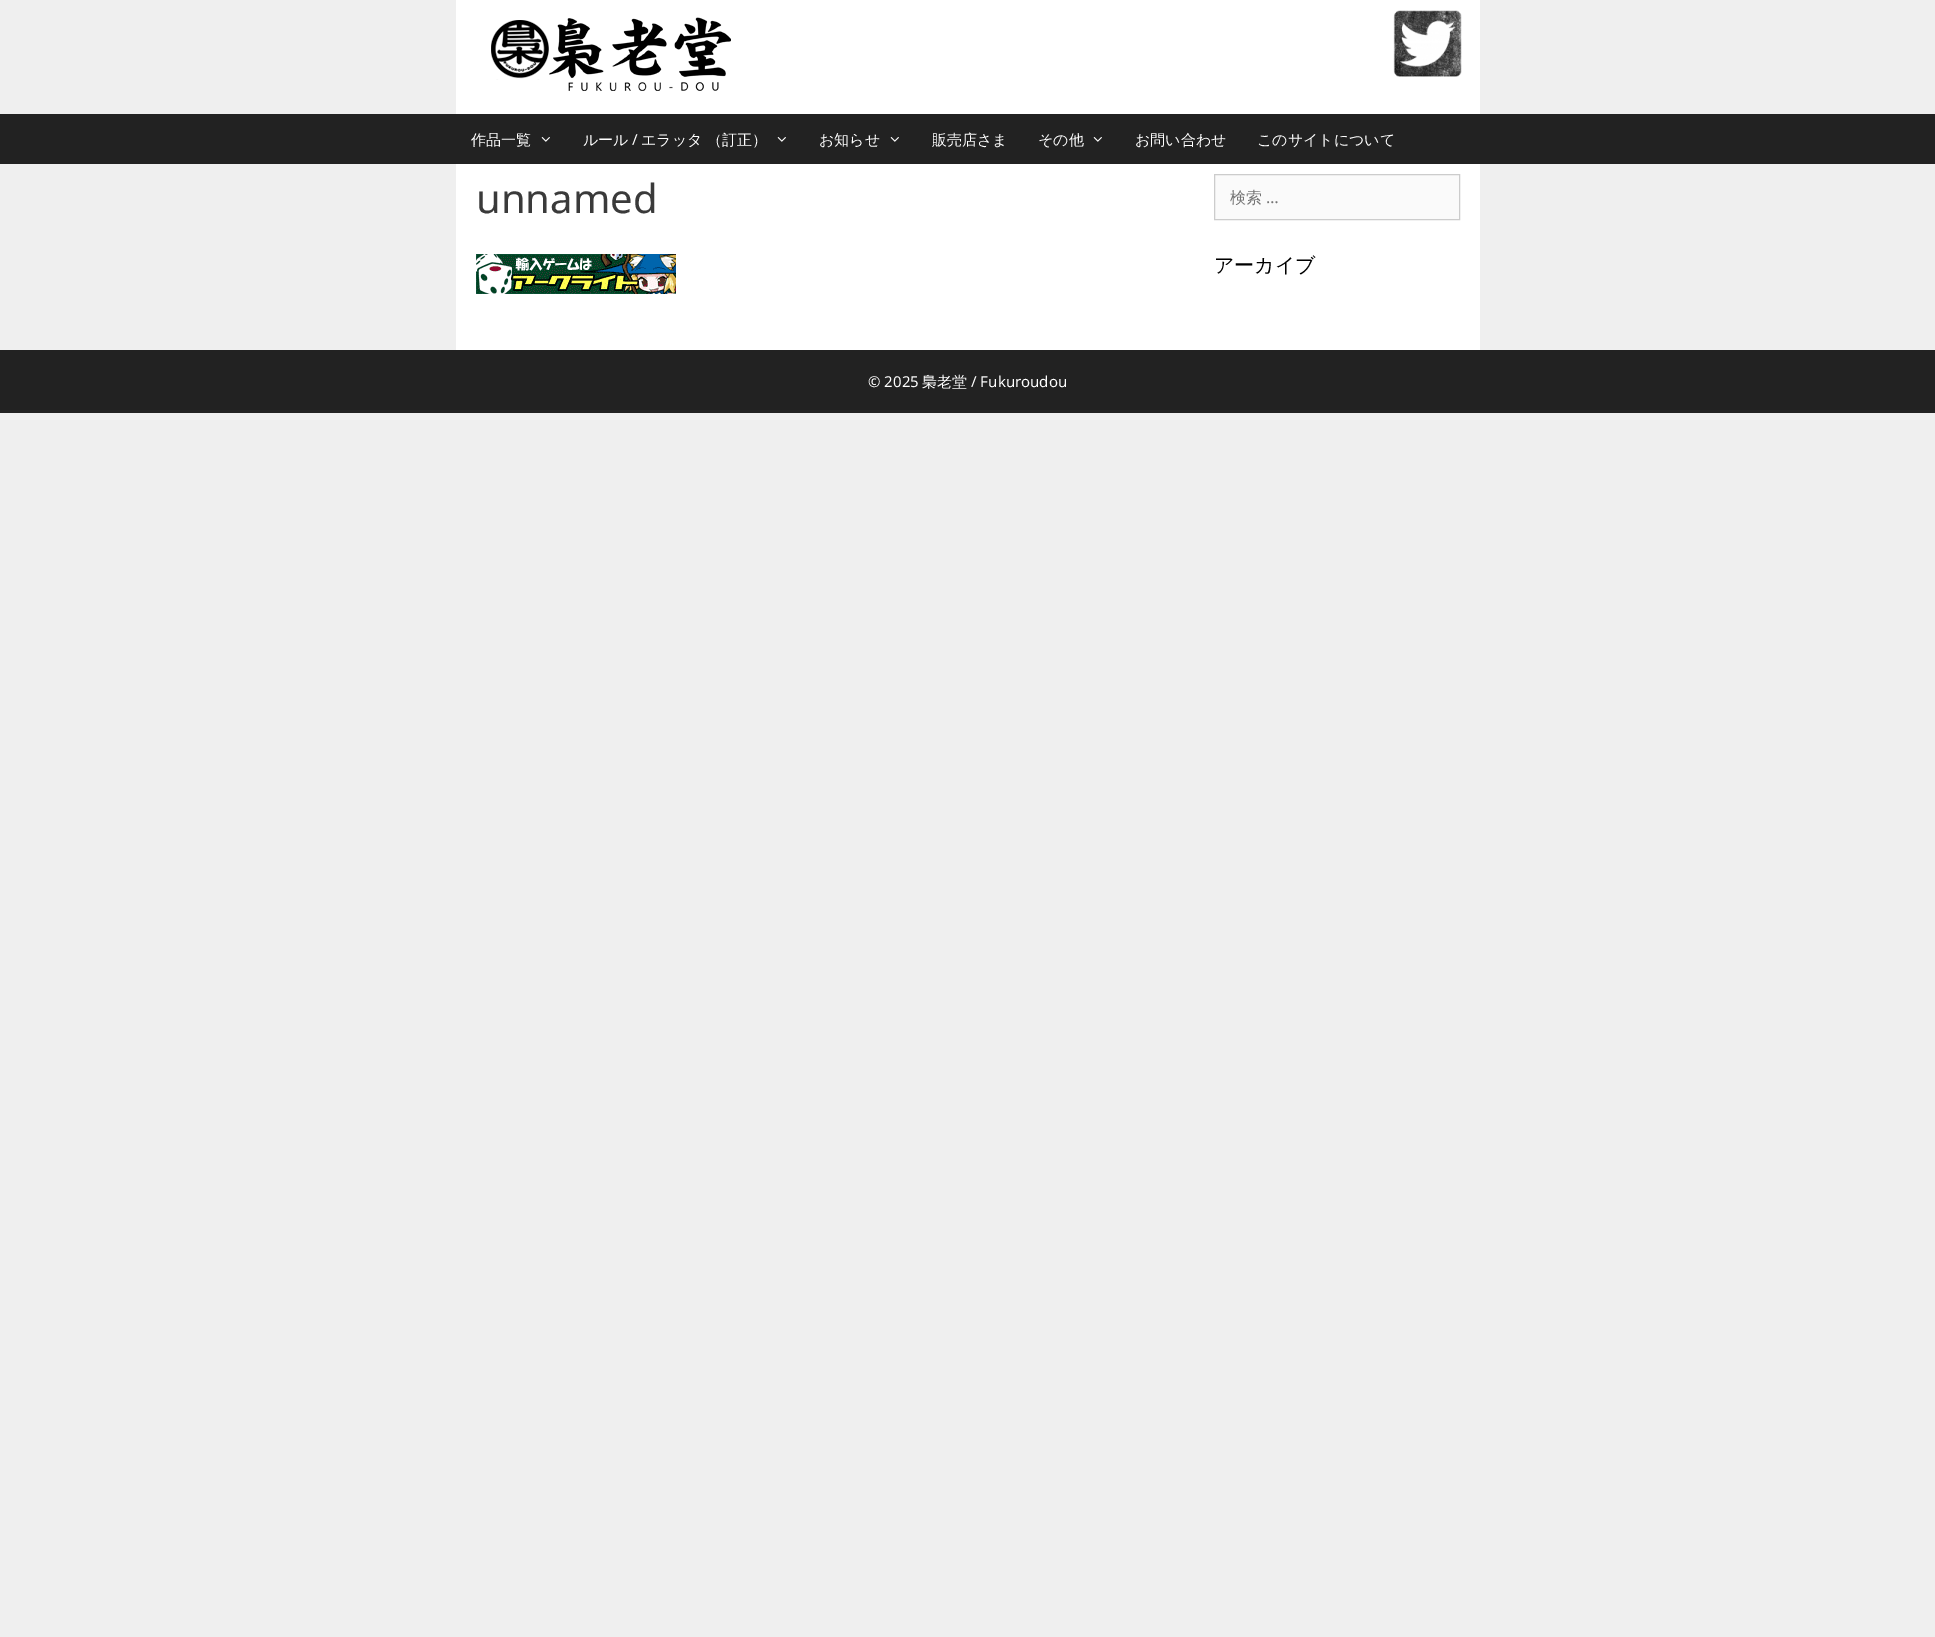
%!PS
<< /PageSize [1935 1637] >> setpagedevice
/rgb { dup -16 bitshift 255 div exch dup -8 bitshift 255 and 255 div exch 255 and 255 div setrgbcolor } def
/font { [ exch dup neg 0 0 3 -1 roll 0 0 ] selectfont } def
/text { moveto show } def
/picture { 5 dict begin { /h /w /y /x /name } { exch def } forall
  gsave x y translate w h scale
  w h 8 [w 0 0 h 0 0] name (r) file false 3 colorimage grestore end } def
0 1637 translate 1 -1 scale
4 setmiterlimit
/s1 { /WenQuanYiZenHei-Medium 15 font 16#FFFFFF rgb } def
/s2 { /NotoSans-Regular 15 font 16#FFFFFF rgb } def
/s3 { /NotoSans-Regular 40 font 16#3A3A3A rgb } def
/s4 { /WenQuanYiZenHei-Medium 16 font 16#757575 rgb } def
/s5 { /NotoSans-Regular 16 font 16#757575 rgb } def
/s6 { /WenQuanYiZenHei-Medium 20 font 16#000000 rgb } def
16#EFEFEF rgb
0 0 1935 1637 rectfill
16#FFFFFF rgb
456 0 1024 114 rectfill
(pic1.raw) 491 17 240 74 picture
(pic2.raw) 1393 10 69 67 picture
16#222222 rgb
0 114 1935 50 rectfill
s1
(作品一覧) 471 145 text
(pic3.raw) 541 137 9 5 picture
(ルール) 583 145 text
s2
(/) 632 145 text
s1
(エラッタ （訂正）) 641 145 text
(pic3.raw) 777 137 9 5 picture
(お知らせ) 819 145 text
(pic3.raw) 890 137 9 5 picture
(販売店さま) 932 145 text
(その他) 1038 145 text
(pic3.raw) 1093 137 9 5 picture
(お問い合わせ) 1135 145 text
(このサイトについて) 1257 145 text
456 164 1024 186 rectfill
s3
(unnamed) 476 213 text
(pic4.raw) 476 254 200 40 picture
16#FAFAFA rgb
1214.5 174.5 moveto 1459.5 174.5 lineto 1459.5 219.5 lineto 1214.5 219.5 lineto closepath gsave fill grestore
16#CCCCCC rgb
stroke
s4
(検索) 1230 203 text
s5
(…) 1266 203 text
s6
(アーカイブ) 1214 272 text
16#222222 rgb
0 350 1935 63 rectfill
s2
(© 2025) 868 387 text
s1
(梟老堂) 922 387 text
s2
(/ Fukuroudou) 971 387 text
showpage
